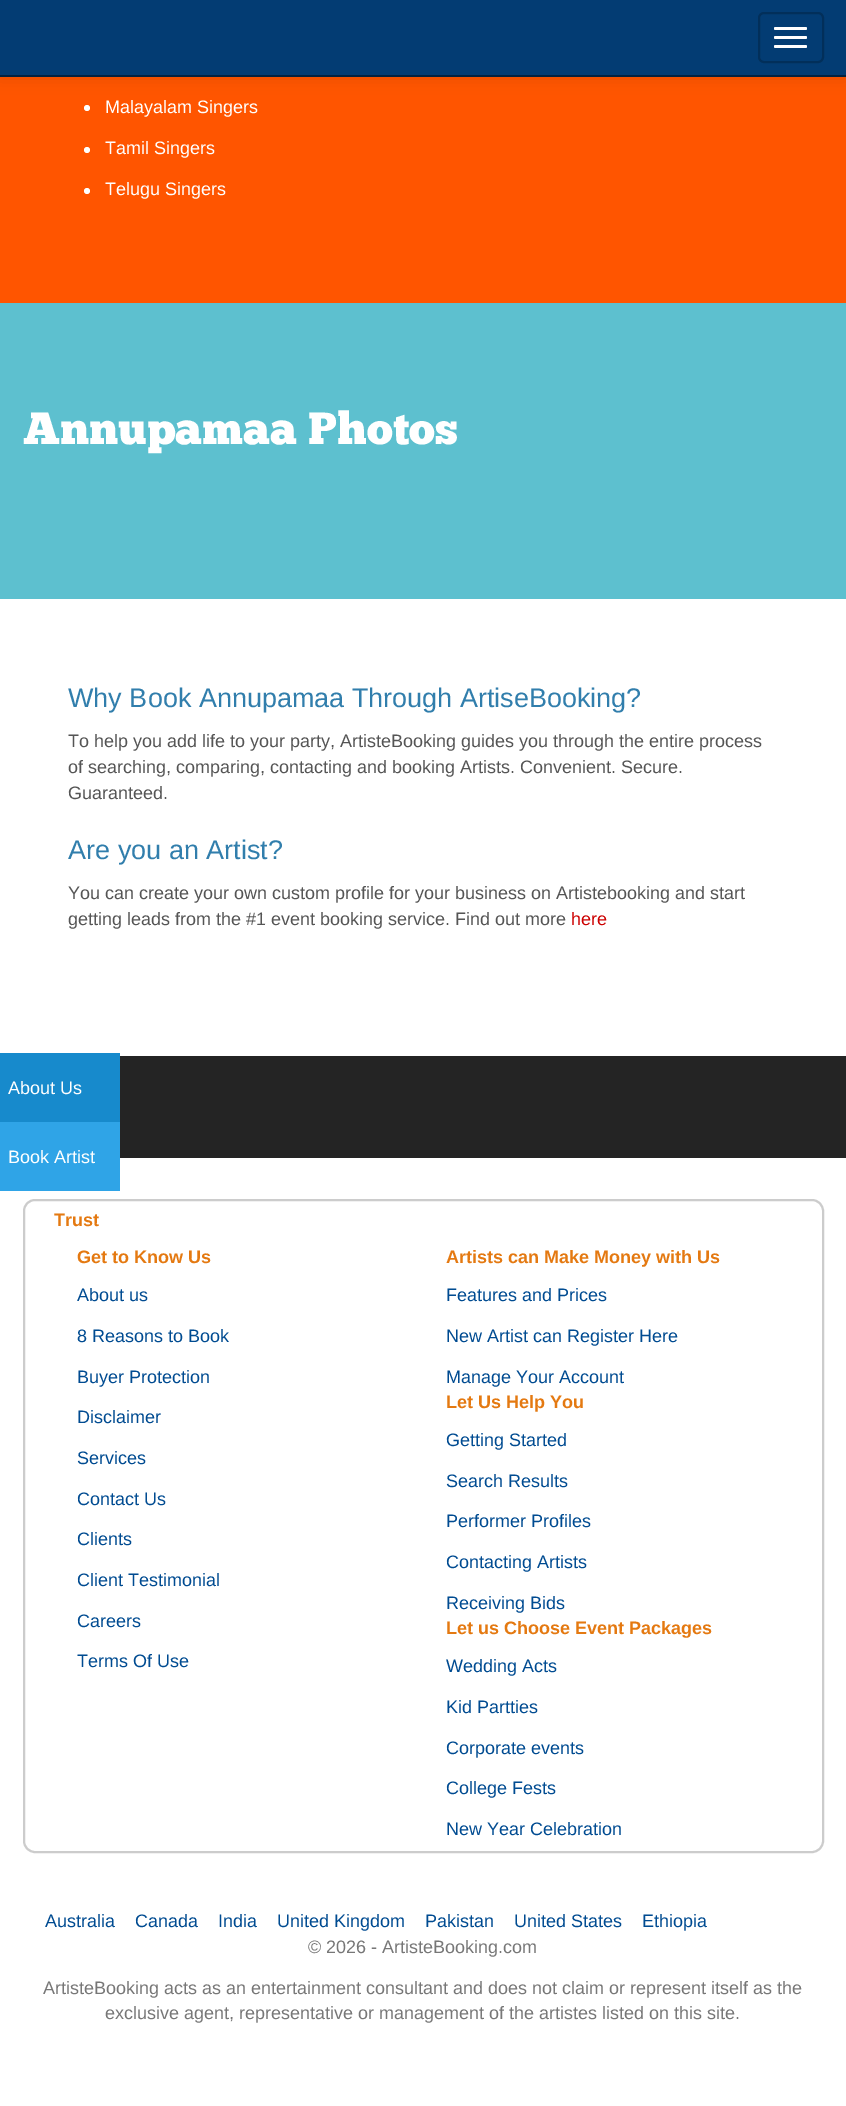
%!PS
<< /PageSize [846 2106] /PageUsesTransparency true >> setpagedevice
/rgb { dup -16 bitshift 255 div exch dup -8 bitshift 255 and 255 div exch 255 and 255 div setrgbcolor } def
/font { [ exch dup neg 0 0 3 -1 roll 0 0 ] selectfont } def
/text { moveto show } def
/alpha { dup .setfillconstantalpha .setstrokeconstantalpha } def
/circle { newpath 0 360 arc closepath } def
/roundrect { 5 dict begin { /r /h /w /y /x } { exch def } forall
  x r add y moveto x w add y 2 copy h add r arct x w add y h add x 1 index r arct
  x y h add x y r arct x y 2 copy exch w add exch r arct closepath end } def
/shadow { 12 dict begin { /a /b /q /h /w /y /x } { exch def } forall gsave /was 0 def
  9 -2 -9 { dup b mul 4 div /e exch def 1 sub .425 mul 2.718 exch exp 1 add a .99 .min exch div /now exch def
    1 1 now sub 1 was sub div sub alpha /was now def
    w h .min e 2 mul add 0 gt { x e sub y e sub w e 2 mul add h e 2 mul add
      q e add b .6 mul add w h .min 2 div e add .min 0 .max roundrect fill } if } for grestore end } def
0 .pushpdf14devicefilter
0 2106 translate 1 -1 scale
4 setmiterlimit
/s1 { /LiberationSans-Regular 18 font 16#FFFFFF rgb } def
/s2 { /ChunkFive-Regular 45 font 16#FFFFFF rgb } def
/s3 { /LiberationSans-Regular 27 font 16#317EAC rgb } def
/s4 { /LiberationSans-Regular 18 font 16#555555 rgb } def
/s5 { /LiberationSans-Regular 18 font 16#CC0000 rgb } def
/s6 { /LiberationSans-Bold 18 font 16#E47911 rgb } def
/s7 { /LiberationSans-Regular 18 font 16#004B91 rgb } def
/s8 { /LiberationSans-Regular 18 font 16#777777 rgb } def
16#FFFFFF rgb
0 0 846 2106 rectfill
16#FF5500 rgb
0 77 846 226 rectfill
16#000000 rgb
0 2 846 76 0 7.5 0.1 shadow
16#033C73 rgb
0 0 846 75 rectfill
16#022241 rgb
0 75 846 2 rectfill
16#022F5A rgb
2 setlinewidth
759 13 64 49 5 roundrect stroke
16#FFFFFF rgb
774 27 33 3 1.5 roundrect fill
774 36 33 3 1.5 roundrect fill
774 45 33 3 1.5 roundrect fill
87 108 3 circle fill
s1
(Malayalam Singers) 105 113 text
87 150 3 circle fill
(Tamil Singers) 105 154 text
87 191 3 circle fill
(Telugu Singers) 105 195 text
16#5DC0CF rgb
0 303 846 296 rectfill
s2
(Annupamaa Photos) 23 444 text
s3
(Why Book Annupamaa Through ArtiseBooking?) 68 707 text
s4
(To help you add life to your party, ArtisteBooking guides you through the entire process) 68 747 text
(of searching, comparing, contacting and booking Artists. Convenient. Secure.) 68 773 text
(Guaranteed.) 68 799 text
s3
(Are you an Artist?) 68 859 text
s4
(You can create your own custom profile for your business on Artistebooking and start) 68 899 text
(getting leads from the #1 event booking service. Find out more) 68 925 text
s5
(here) 571 925 text
16#242424 rgb
120 1056 726 102 rectfill
16#CCCCCC rgb
24 1200 799 652 11 roundrect stroke
s6
(Trust) 54 1226 text
(Get to Know Us) 77 1263 text
s7
(About us) 77 1301 text
(8 Reasons to Book) 77 1342 text
(Buyer Protection) 77 1383 text
(Disclaimer) 77 1423 text
(Services) 77 1464 text
(Contact Us) 77 1505 text
(Clients) 77 1545 text
(Client Testimonial) 77 1586 text
(Careers) 77 1627 text
(Terms Of Use) 77 1667 text
s6
(Artists can Make Money with Us) 446 1263 text
s7
(Features and Prices) 446 1301 text
(New Artist can Register Here) 446 1342 text
(Manage Your Account) 446 1383 text
s6
(Let Us Help You) 446 1408 text
s7
(Getting Started) 446 1446 text
(Search Results) 446 1487 text
(Performer Profiles) 446 1527 text
(Contacting Artists) 446 1568 text
(Receiving Bids) 446 1609 text
s6
(Let us Choose Event Packages) 446 1634 text
s7
(Wedding Acts) 446 1672 text
(Kid Partties) 446 1713 text
(Corporate events) 446 1754 text
(College Fests) 446 1794 text
(New Year Celebration) 446 1835 text
(Australia) 45 1927 text
(Canada) 135 1927 text
(India) 218 1927 text
(United Kingdom) 277 1927 text
(Pakistan) 425 1927 text
(United States) 514 1927 text
(Ethiopia) 642 1927 text
s8
(© 2026 - ArtisteBooking.com) 308 1953 text
(ArtisteBooking acts as an entertainment consultant and does not claim or represent itself as the) 43 1994 text
(exclusive agent, representative or management of the artistes listed on this site.) 105 2019 text
16#2FA4E7 rgb
0 1122 120 69 rectfill
16#178ACC rgb
0 1053 120 69 rectfill
s1
(About Us) 8 1094 text
(Book Artist) 8 1163 text
.poppdf14devicefilter showpage
